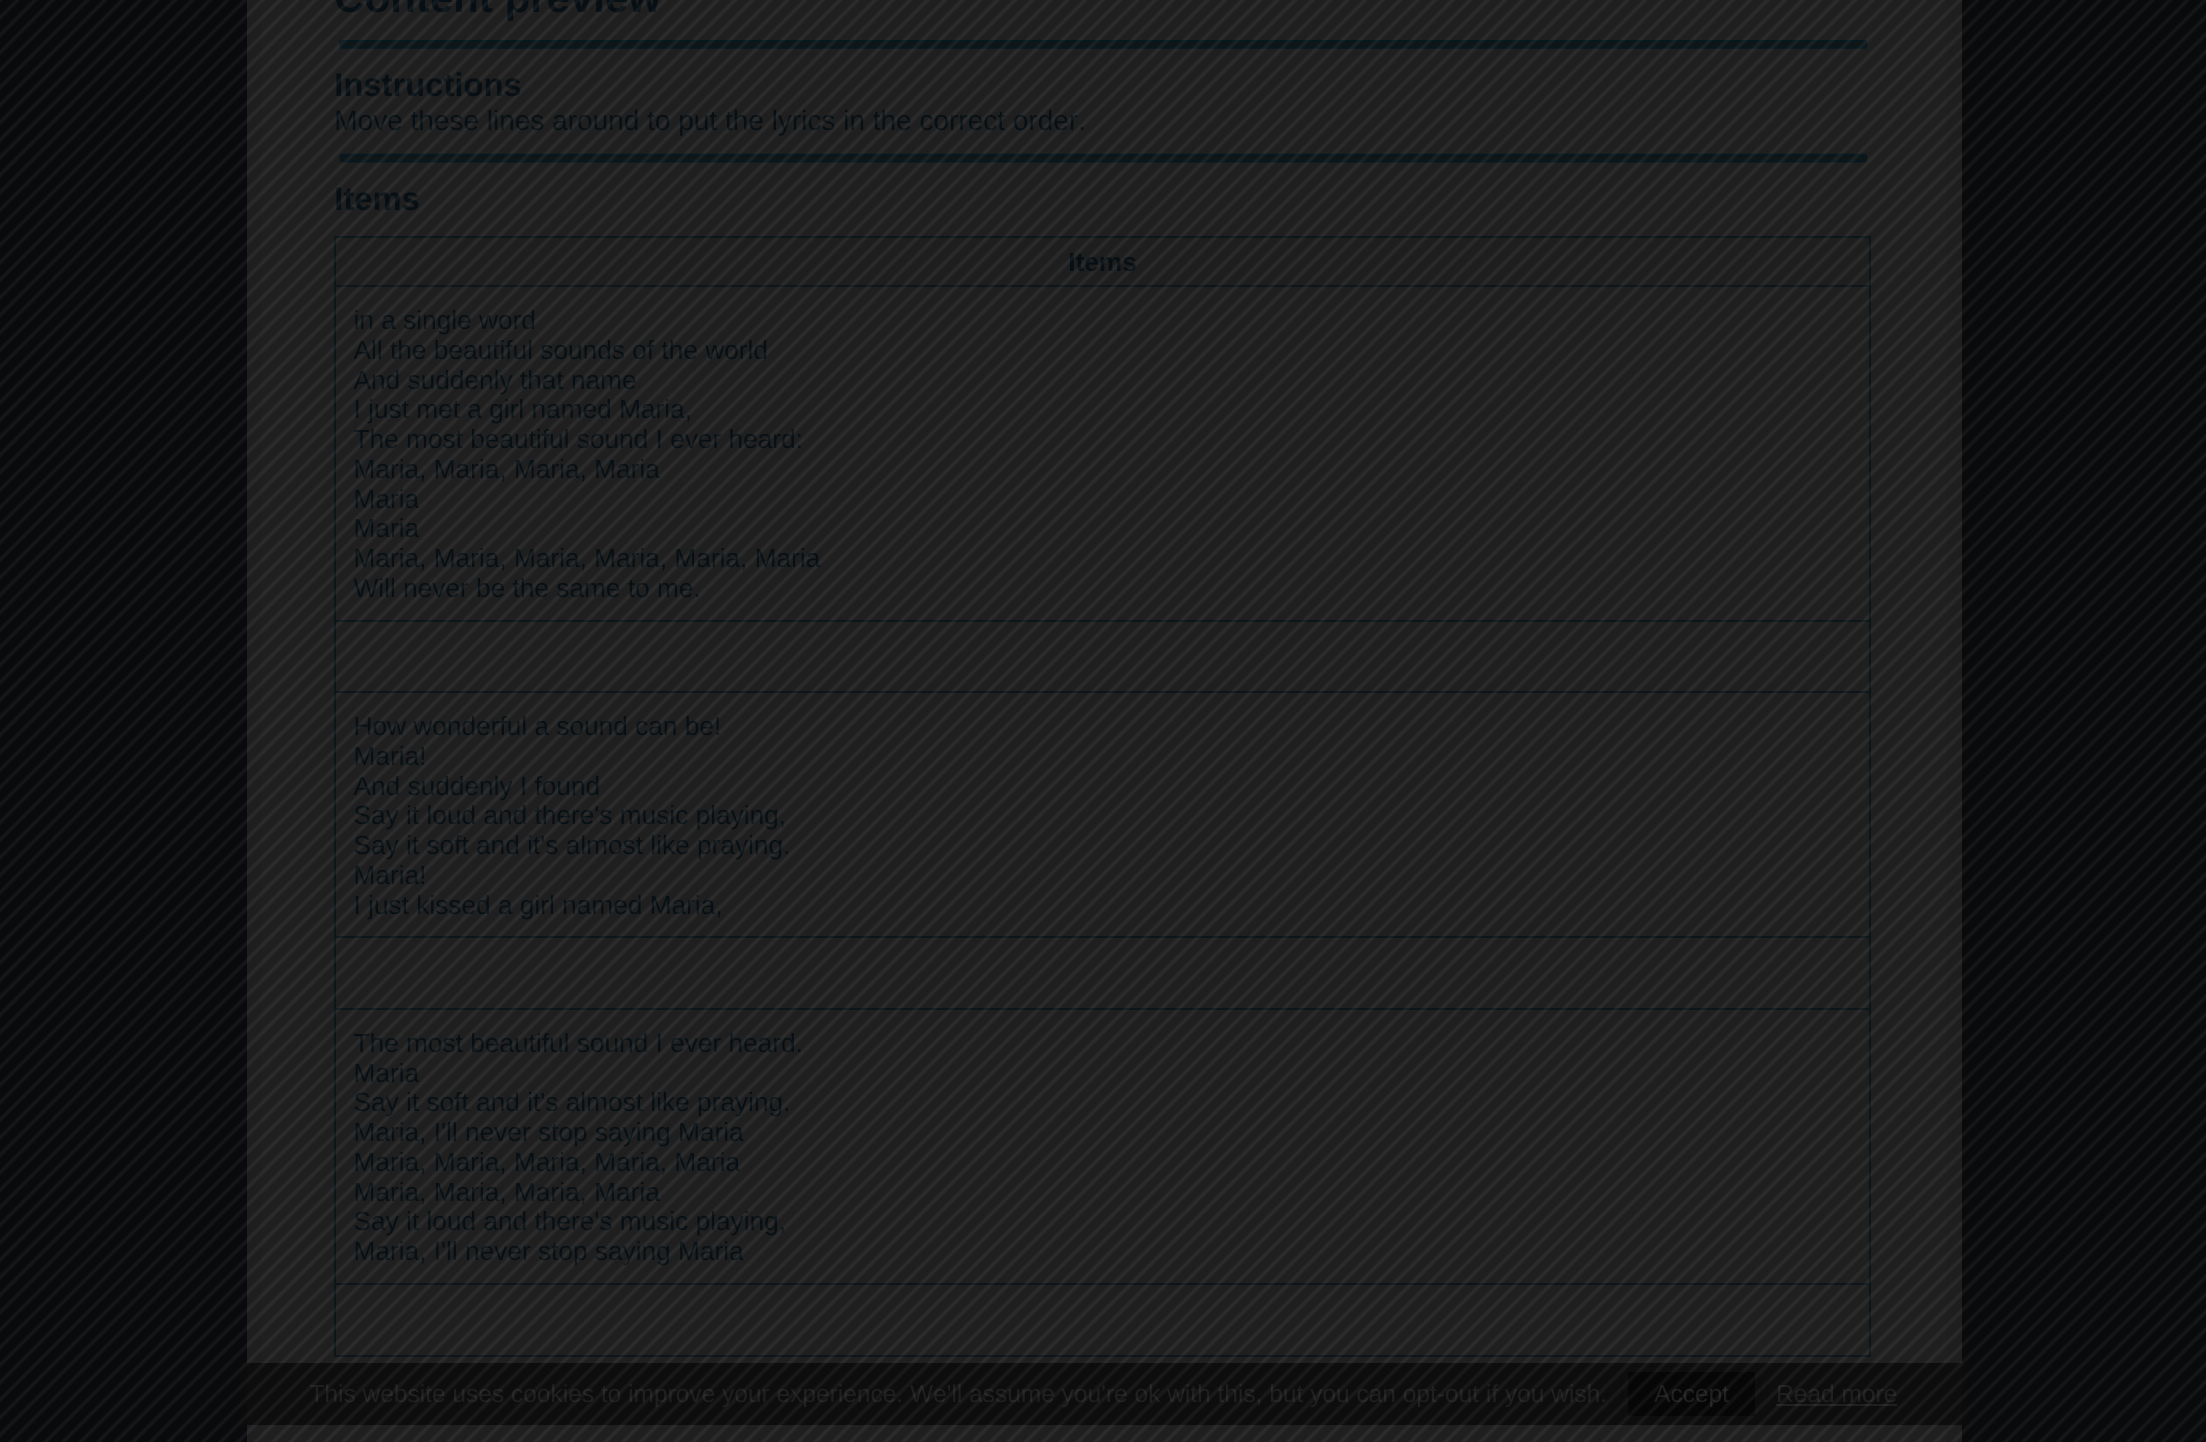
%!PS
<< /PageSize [2206 1442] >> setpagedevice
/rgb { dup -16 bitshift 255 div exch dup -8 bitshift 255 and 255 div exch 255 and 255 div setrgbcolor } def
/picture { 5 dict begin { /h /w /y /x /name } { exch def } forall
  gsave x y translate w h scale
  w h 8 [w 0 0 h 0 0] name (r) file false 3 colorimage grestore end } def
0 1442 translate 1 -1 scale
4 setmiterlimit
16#FFFFFF rgb
0 0 2206 1442 rectfill
(pic2.raw) 339 40 1529 9 picture
(pic3.raw) 339 153 1529 10 picture
(pic1.raw) 0 0 2206 1442 picture
showpage
